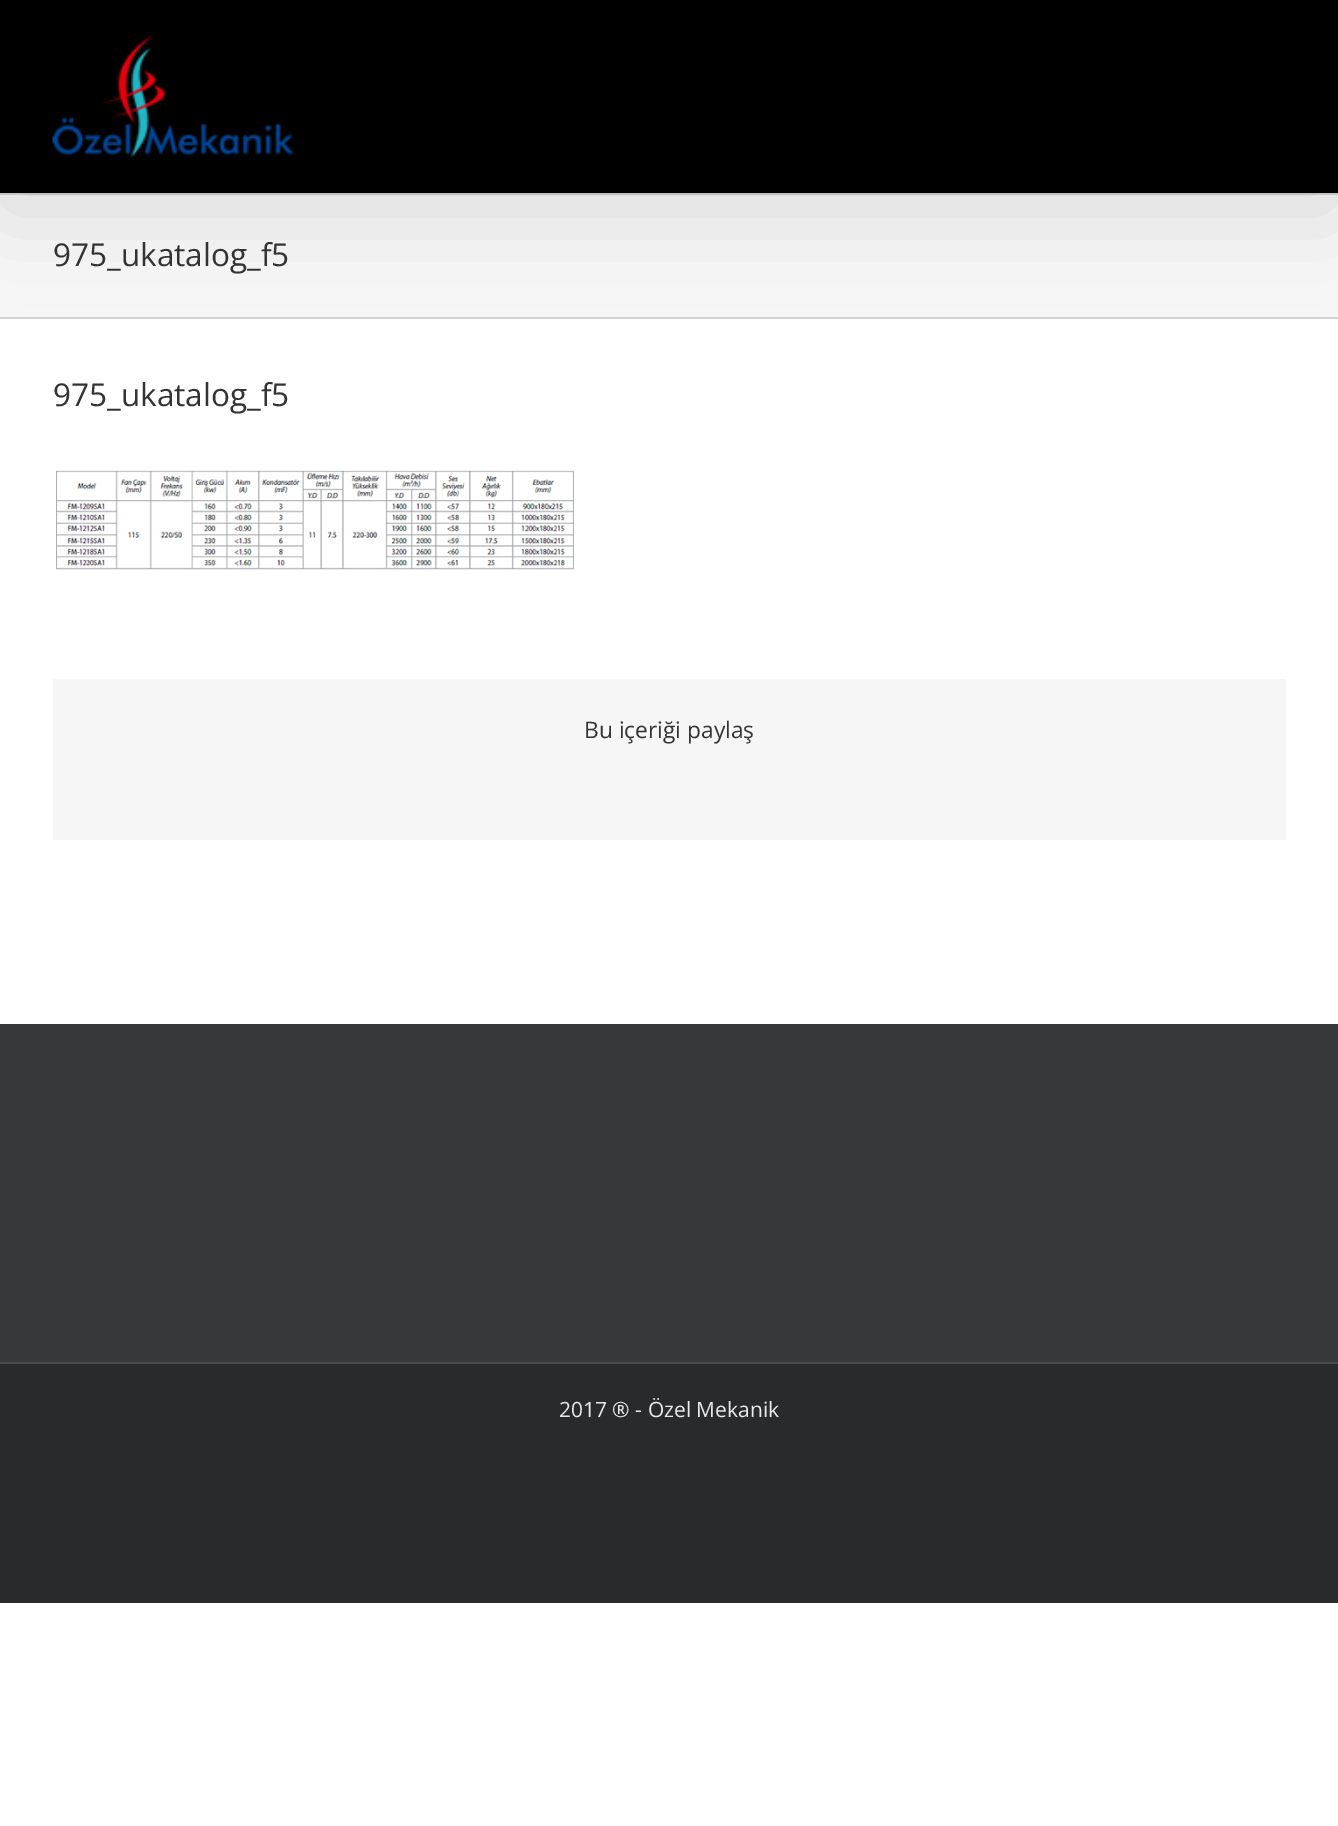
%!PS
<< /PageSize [1338 1826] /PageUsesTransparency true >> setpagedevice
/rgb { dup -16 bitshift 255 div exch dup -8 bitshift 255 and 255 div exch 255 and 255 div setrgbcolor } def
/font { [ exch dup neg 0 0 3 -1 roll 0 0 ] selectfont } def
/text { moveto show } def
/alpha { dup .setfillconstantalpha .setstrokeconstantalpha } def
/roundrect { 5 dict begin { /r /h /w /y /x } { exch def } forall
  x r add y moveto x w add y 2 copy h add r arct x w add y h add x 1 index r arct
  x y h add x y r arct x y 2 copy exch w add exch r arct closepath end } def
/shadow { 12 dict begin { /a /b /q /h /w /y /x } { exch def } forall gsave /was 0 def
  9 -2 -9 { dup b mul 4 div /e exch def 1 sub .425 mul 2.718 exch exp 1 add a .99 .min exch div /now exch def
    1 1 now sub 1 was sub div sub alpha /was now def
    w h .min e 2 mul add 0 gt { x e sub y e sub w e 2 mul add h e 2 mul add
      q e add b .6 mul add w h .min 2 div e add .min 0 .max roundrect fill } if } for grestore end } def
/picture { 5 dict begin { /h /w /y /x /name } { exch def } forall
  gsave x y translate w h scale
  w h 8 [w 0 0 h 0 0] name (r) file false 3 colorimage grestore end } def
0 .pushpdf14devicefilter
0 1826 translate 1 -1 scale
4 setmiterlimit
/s1 { /OpenSans-Regular 31.5 font 16#333333 rgb } def
/s2 { /OpenSans-Regular 22.75 font 16#333333 rgb } def
/s3 { /OpenSans-Regular 21 font 16#EAEAEA rgb } def
16#FFFFFF rgb
0 0 1338 1826 rectfill
16#F6F6F6 rgb
0 195 1338 122 rectfill
16#D2D3D4 rgb
0 193 1338 2 rectfill
0 317 1338 2 rectfill
16#000000 rgb
4 21 1331 186 0 44 0.14 shadow
0 0 1338 193 rectfill
(pic1.raw) 52 35 242 123 picture
s1
(975_ukatalog_f5) 53 266 text
(975_ukatalog_f5) 53 406 text
(pic2.raw) 56 470 518 100 picture
16#F6F6F6 rgb
53 679 1233 161 rectfill
s2
(Bu içeriği paylaş) 584 738 text
16#363839 rgb
0 1024 1338 338 rectfill
16#282A2B rgb
0 1364 1338 239 rectfill
16#4B4C4D rgb
0 1362 1338 2 rectfill
s3
(2017 ® - Özel Mekanik) 559 1417 text
.poppdf14devicefilter showpage
